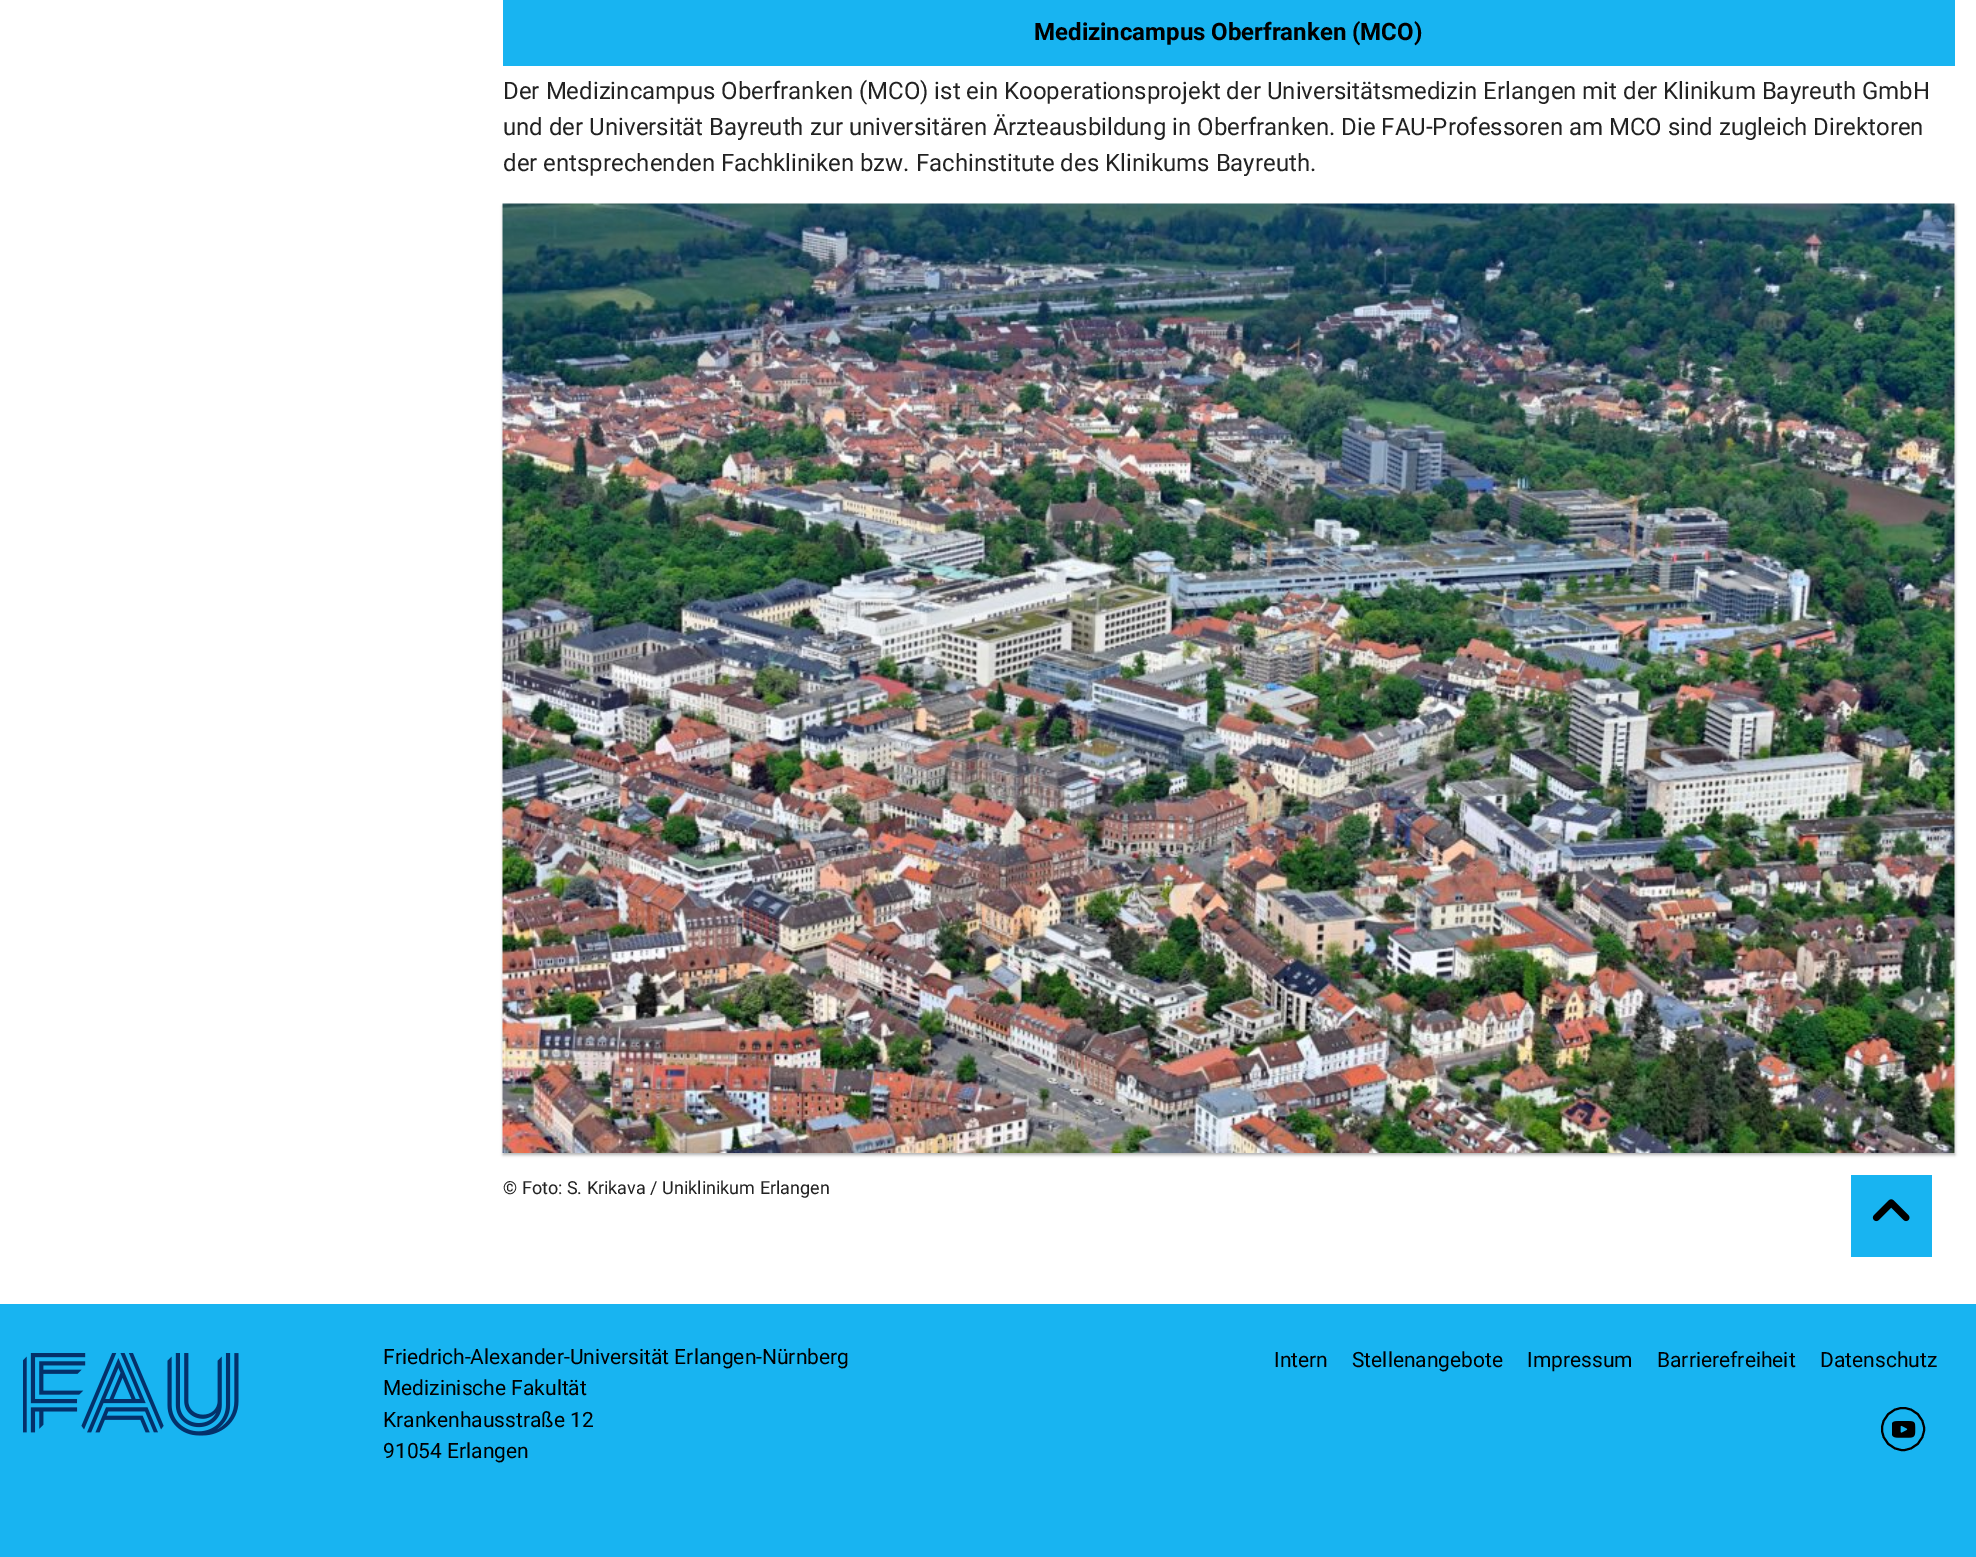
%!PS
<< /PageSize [1976 1557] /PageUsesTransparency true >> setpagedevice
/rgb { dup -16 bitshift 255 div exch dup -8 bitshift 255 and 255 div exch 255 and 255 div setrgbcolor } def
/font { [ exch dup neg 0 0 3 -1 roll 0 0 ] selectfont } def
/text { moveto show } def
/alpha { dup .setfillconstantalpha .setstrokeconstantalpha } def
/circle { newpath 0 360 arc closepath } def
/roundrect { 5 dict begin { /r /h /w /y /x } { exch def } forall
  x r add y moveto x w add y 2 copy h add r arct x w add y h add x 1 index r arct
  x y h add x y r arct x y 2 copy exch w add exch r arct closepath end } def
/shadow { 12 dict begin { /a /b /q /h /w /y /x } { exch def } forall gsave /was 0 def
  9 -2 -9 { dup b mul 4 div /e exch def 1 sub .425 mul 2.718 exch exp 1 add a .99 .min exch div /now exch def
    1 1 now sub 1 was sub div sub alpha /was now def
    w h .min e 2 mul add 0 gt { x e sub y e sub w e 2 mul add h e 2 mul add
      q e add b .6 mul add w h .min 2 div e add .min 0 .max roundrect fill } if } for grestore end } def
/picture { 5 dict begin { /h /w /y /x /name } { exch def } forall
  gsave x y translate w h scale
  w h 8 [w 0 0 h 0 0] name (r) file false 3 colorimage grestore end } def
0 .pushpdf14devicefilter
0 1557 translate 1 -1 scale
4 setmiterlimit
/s1 { /Roboto-Bold 24 font 16#000000 rgb } def
/s2 { /Roboto-Regular 24 font 16#222222 rgb } def
/s3 { /Roboto-Regular 18 font 16#222222 rgb } def
/s4 { /Roboto-Regular 21 font 16#000000 rgb } def
16#FFFFFF rgb
0 0 1976 1557 rectfill
16#18B4F1 rgb
503 0 1452 66 rectfill
s1
(Medizincampus Oberfranken \(MCO\)) 1034 40 text
s2
(Der Medizincampus Oberfranken \(MCO\) ist ein Kooperationsprojekt der Universitätsmedizin Erlangen mit der Klinikum Bayreuth GmbH) 503 99 text
(und der Universität Bayreuth zur universitären Ärzteausbildung in Oberfranken. Die FAU-Professoren am MCO sind zugleich Direktoren) 503 135 text
(der entsprechenden Fachkliniken bzw. Fachinstitute des Klinikums Bayreuth.) 503 171 text
16#000000 rgb
503 206 1452 949 0 1.5 0.3 shadow
(pic1.raw) 502 203 1453 950 picture
s3
(© Foto: S. Krikava / Uniklinikum Erlangen) 503 1194 text
16#18B4F1 rgb
0 1304 1976 253 rectfill
1851 1175 81 82 rectfill
(pic2.raw) 1872 1199 38 23 picture
(pic3.raw) 23 1353 216 83 picture
s4
(Friedrich-Alexander-Universität Erlangen-Nürnberg) 383 1364 text
(Medizinische Fakultät) 383 1395 text
(Krankenhausstraße 12) 383 1427 text
(91054 Erlangen) 383 1458 text
(Intern) 1274 1367 text
(Stellenangebote) 1352 1367 text
(Impressum) 1527 1367 text
(Barrierefreiheit) 1657 1367 text
(Datenschutz) 1820 1367 text
2 setlinewidth
1903 1429 21 circle stroke
(pic4.raw) 1892 1421 24 17 picture
.poppdf14devicefilter showpage
